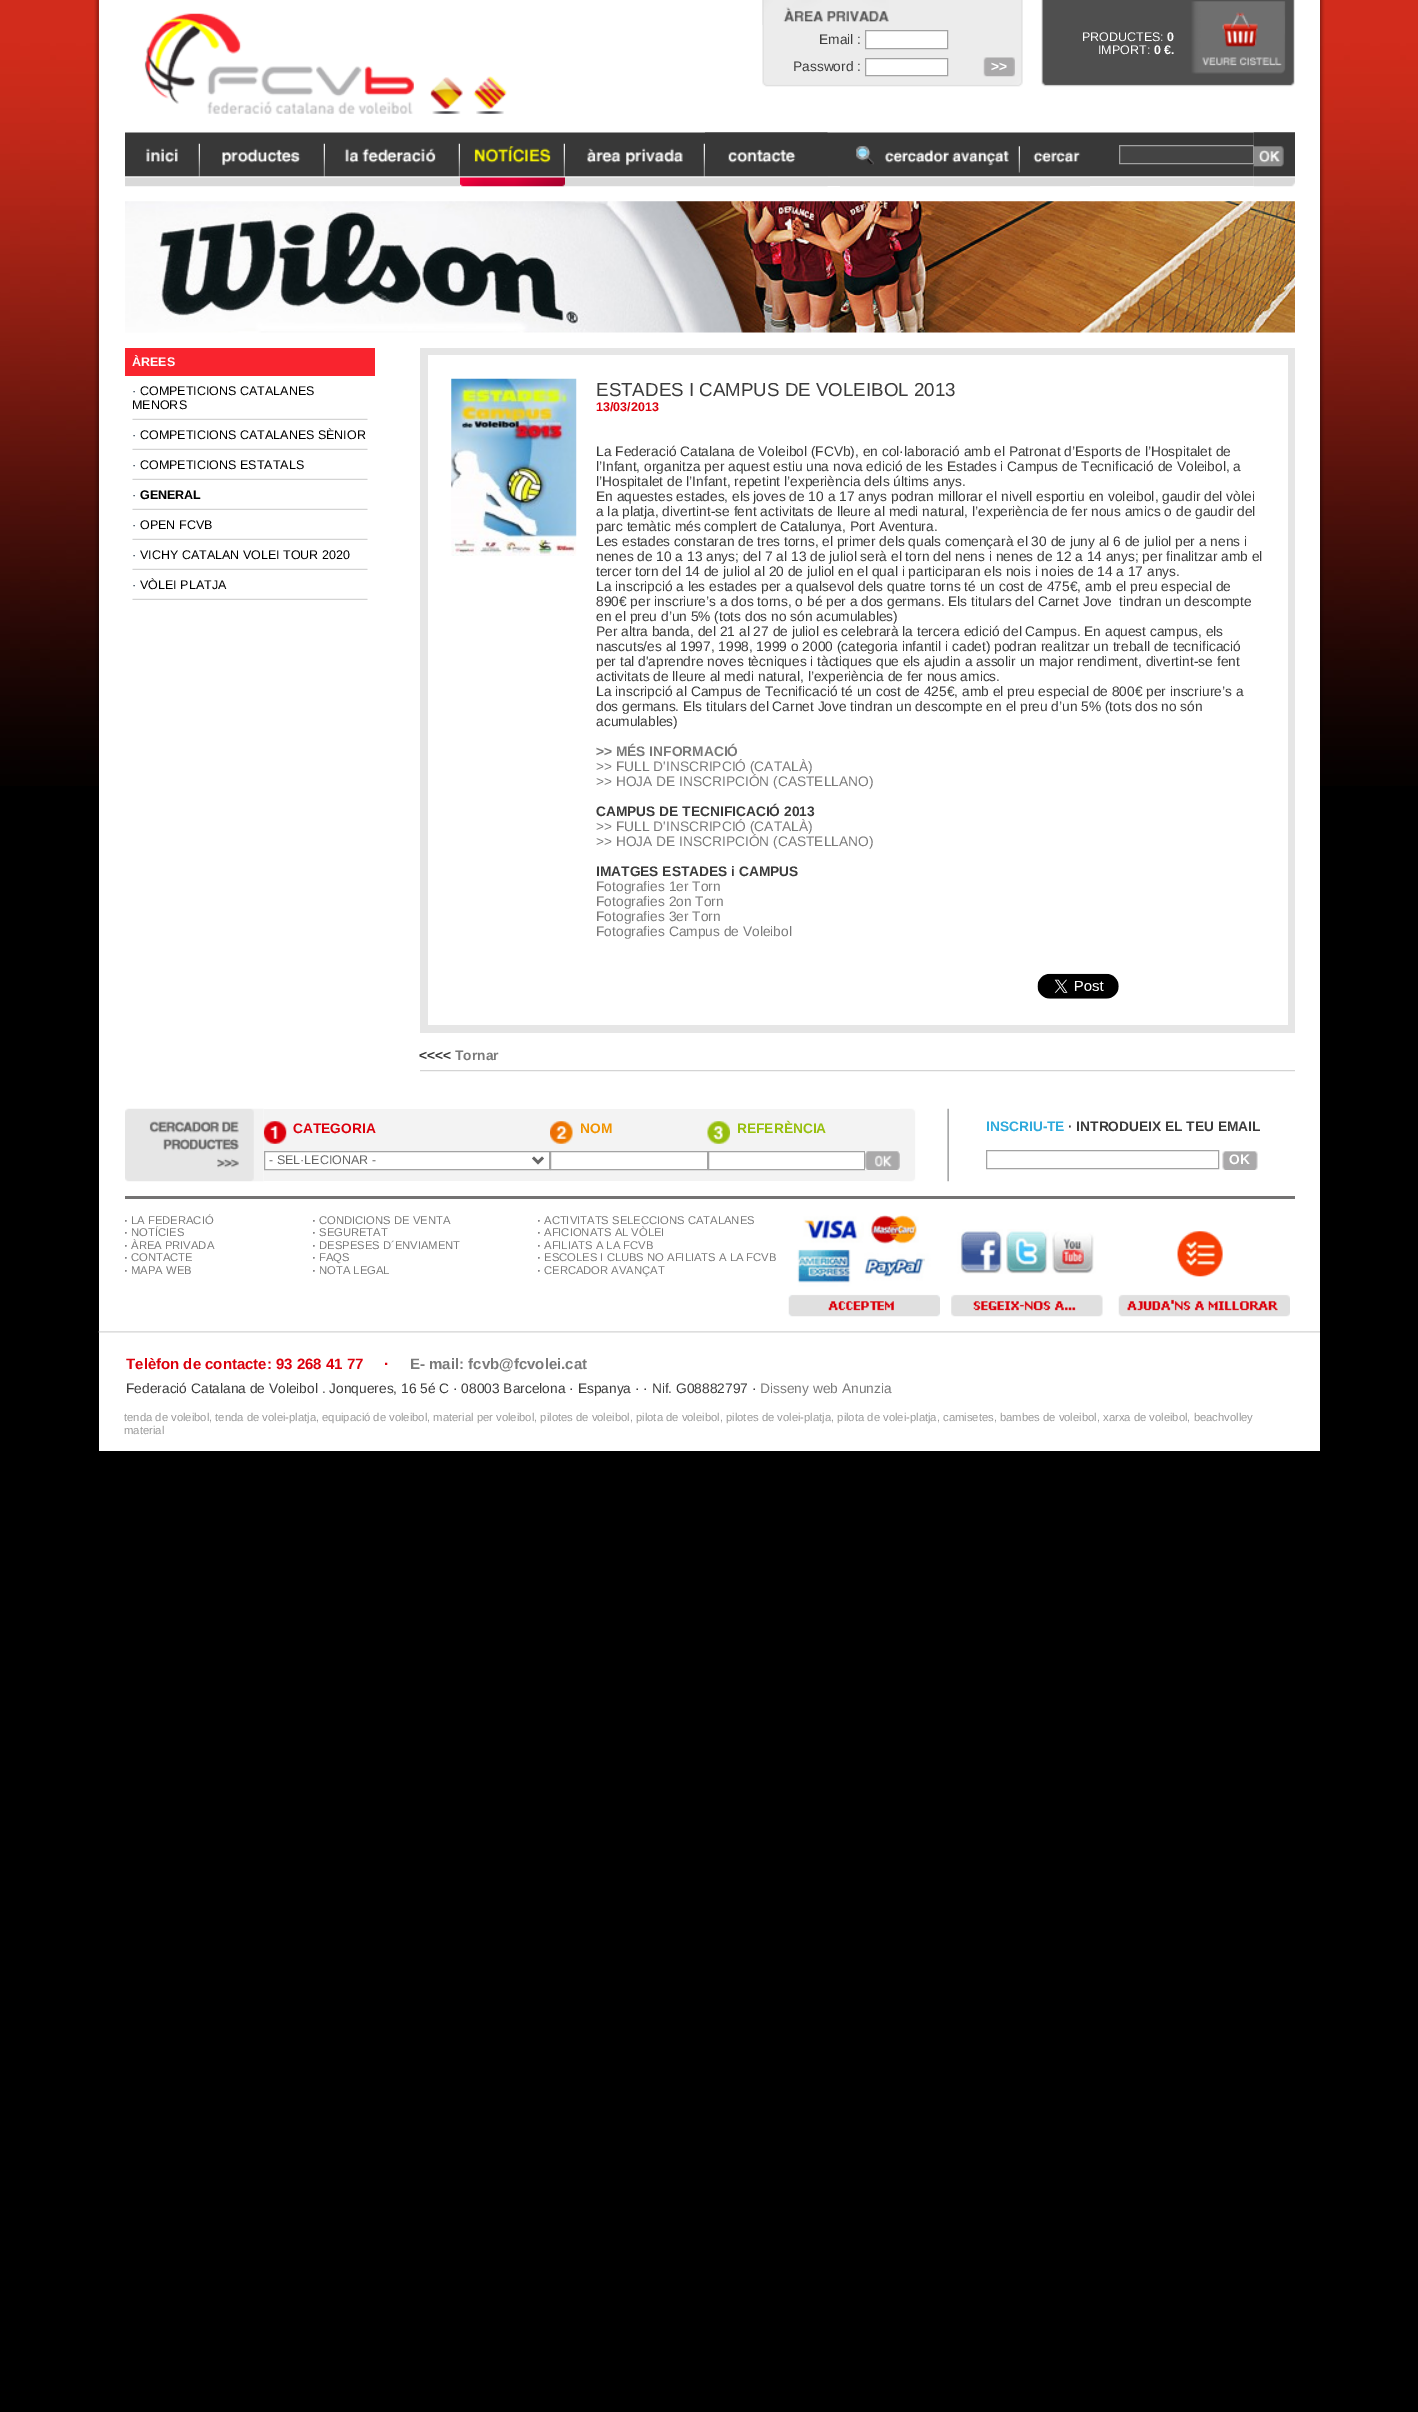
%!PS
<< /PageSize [1418 2412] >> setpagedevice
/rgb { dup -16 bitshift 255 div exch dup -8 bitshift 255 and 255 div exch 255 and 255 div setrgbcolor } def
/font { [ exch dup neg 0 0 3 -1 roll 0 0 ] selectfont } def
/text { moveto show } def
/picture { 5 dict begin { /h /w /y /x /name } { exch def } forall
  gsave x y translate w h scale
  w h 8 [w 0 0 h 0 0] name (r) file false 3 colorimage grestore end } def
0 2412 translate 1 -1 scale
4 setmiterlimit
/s1 { /LiberationSans-Regular 13.75 font 16#3C3C3C rgb } def
/s2 { /LiberationSans-Bold 13.75 font 16#FFFFFF rgb } def
/s3 { /LiberationSans-Regular 12.5 font 16#FFFFFF rgb } def
/s4 { /LiberationSans-Bold 12.5 font 16#FFFFFF rgb } def
/s5 { /LiberationSans-Regular 12.5 font 16#192C40 rgb } def
/s6 { /LiberationSans-Regular 12.5 font 16#000000 rgb } def
/s7 { /LiberationSans-Bold 12.5 font 16#000000 rgb } def
/s8 { /LiberationSans-Regular 18.75 font 16#3C3C3C rgb } def
/s9 { /LiberationSans-Bold 12.5 font 16#DC000B rgb } def
/s10 { /LiberationSans-Bold 13.75 font 16#7A7A7A rgb } def
/s11 { /LiberationSans-Regular 13.75 font 16#7A7A7A rgb } def
/s12 { /LiberationSans-Bold 13.75 font 16#3C3C3C rgb } def
/s13 { /LiberationSans-Bold 13.75 font 16#DC000B rgb } def
/s14 { /LiberationSans-Regular 12.5 font 16#666666 rgb } def
/s15 { /LiberationSans-Bold 13.75 font 16#F29400 rgb } def
/s16 { /LiberationSans-Bold 13.75 font 16#97BF0D rgb } def
/s17 { /LiberationSans-Bold 13.75 font 16#2EAADC rgb } def
/s18 { /LiberationSans-Regular 11.25 font 16#1A171B rgb } def
/s19 { /LiberationSans-Regular 11.25 font 16#7A7A7A rgb } def
/s20 { /LiberationSans-Bold 15 font 16#DC000B rgb } def
/s21 { /LiberationSans-Bold 15 font 16#7A7A7A rgb } def
/s22 { /LiberationSans-Regular 11.25 font 16#999999 rgb } def
16#000000 rgb
0 0 1418 2412 rectfill
(pic1.raw) 0 0 1418 786 picture
(pic2.raw) 94 0 5 721 picture
16#FFFFFF rgb
99 0 1221 1451 rectfill
(pic3.raw) 144 13 270 101 picture
(pic4.raw) 762 0 261 87 picture
(pic5.raw) 762 0 127 25 picture
s1
(Email :) 819 44 text
16#FFFFFF rgb
865.5 30.5 moveto 947.5 30.5 lineto 947.5 48.5 lineto 865.5 48.5 lineto closepath gsave fill grestore
16#A3A3A3 rgb
stroke
s1
(Password :) 793 71 text
16#FFFFFF rgb
865.5 58.5 moveto 947.5 58.5 lineto 947.5 75.5 lineto 865.5 75.5 lineto closepath gsave fill grestore
16#A3A3A3 rgb
stroke
(pic6.raw) 983 57 32 20 picture
s2
(>>) 991 71 text
(pic7.raw) 1041 0 9 87 picture
(pic8.raw) 1050 0 125 87 picture
s3
(PRODUCTES:) 1082 41 text
s4
(0) 1167 41 text
s3
(IMPORT:) 1098 54 text
s4
(0 €.) 1154 54 text
(pic9.raw) 1175 0 120 87 picture
(pic10.raw) 430 77 33 37 picture
(pic11.raw) 473 76 34 38 picture
(pic12.raw) 125 132 75 55 picture
(pic13.raw) 200 132 125 55 picture
(pic14.raw) 325 132 135 55 picture
(pic15.raw) 460 132 105 55 picture
(pic16.raw) 565 132 140 55 picture
(pic17.raw) 705 132 135 54 picture
(pic18.raw) 705 132 123 55 picture
(pic19.raw) 840 132 180 55 picture
(pic20.raw) 1020 132 70 55 picture
(pic21.raw) 1090 132 164 54 picture
(pic22.raw) 1253 132 42 54 picture
16#444444 rgb
1119.5 145.5 moveto 1253.5 145.5 lineto 1253.5 163.5 lineto 1119.5 163.5 lineto closepath gsave fill grestore
16#A1A1A1 rgb
stroke
(pic23.raw) 1253 132 42 55 picture
(pic24.raw) 125 201 1170 132 picture
16#F9242E rgb
125 348 250 28 rectfill
s4
(ÀREES) 132 366 text
s5
(·) 132 395 text
s6
(COMPETICIONS CATALANES) 140 395 text
(MENORS) 132 409 text
(pic25.raw) 132 418 236 2 picture
s5
(·) 132 439 text
s6
(COMPETICIONS CATALANES SÈNIOR) 140 439 text
(pic25.raw) 132 448 236 2 picture
s5
(·) 132 469 text
s6
(COMPETICIONS ESTATALS) 140 469 text
(pic25.raw) 132 478 236 2 picture
s5
(·) 132 499 text
s7
(GENERAL) 140 499 text
(pic25.raw) 132 508 236 2 picture
s5
(·) 132 529 text
s6
(OPEN FCVB) 140 529 text
(pic25.raw) 132 538 236 2 picture
s5
(·) 132 559 text
s6
(VICHY CATALAN VOLEI TOUR 2020) 140 559 text
(pic25.raw) 132 568 236 2 picture
s5
(·) 132 589 text
s6
(VÒLEI PLATJA) 140 589 text
(pic25.raw) 132 598 236 2 picture
16#E6E6E6 rgb
420 348 875 685 rectfill
16#FFFFFF rgb
428 355 860 670 rectfill
(pic26.raw) 451 378 126 178 picture
s8
(ESTADES I CAMPUS DE VOLEIBOL 2013) 596 396 text
s9
(13/03/2013) 596 411 text
s1
(La Federació Catalana de Voleibol \(FCVb\), en col·laboració amb el Patronat d’Esports de l’Hospitalet de) 596 456 text
(l’Infant, organitza per aquest estiu una nova edició de les Estades i Campus de Tecnificació de Voleibol, a) 596 471 text
(l’Hospitalet de l’Infant, repetint l’experiència dels últims anys.) 596 486 text
(En aquestes estades, els joves de 10 a 17 anys podran millorar el nivell esportiu en voleibol, gaudir del vòlei) 596 501 text
(a la platja, divertint-se fent activitats de lleure al medi natural, l’experiència de fer nous amics o de gaudir del) 596 516 text
(parc temàtic més complert de Catalunya, Port Aventura.) 596 531 text
(Les estades constaran de tres torns, el primer dels quals començarà el 30 de juny al 6 de juliol per a nens i) 596 546 text
(nenes de 10 a 13 anys; del 7 al 13 de juliol serà el torn del nens i nenes de 12 a 14 anys; per finalitzar amb el) 596 561 text
(tercer torn del 14 de juliol al 20 de juliol en el qual i participaran els nois i noies de 14 a 17 anys.) 596 576 text
(La inscripció a les estades per a qualsevol dels quatre torns té un cost de 475€, amb el preu especial de) 596 591 text
(890€ per inscriure’s a dos torns, o bé per a dos germans. Els titulars del Carnet Jove  tindran un descompte) 596 606 text
(en el preu d’un 5% \(tots dos no són acumulables\)) 596 621 text
(Per altra banda, del 21 al 27 de juliol es celebrarà la tercera edició del Campus. En aquest campus, els) 596 636 text
(nascuts/es al 1997, 1998, 1999 o 2000 \(categoria infantil i cadet\) podran realitzar un treball de tecnificació) 596 651 text
(per tal d'aprendre noves tècniques i tàctiques que els ajudin a assolir un major rendiment, divertint-se fent) 596 666 text
(activitats de lleure al medi natural, l’experiència de fer nous amics.) 596 681 text
(La inscripció al Campus de Tecnificació té un cost de 425€, amb el preu especial de 800€ per inscriure’s a) 596 696 text
(dos germans. Els titulars del Carnet Jove tindran un descompte en el preu d’un 5% \(tots dos no són) 596 711 text
(acumulables\)) 596 726 text
s10
(>> MÉS INFORMACIÓ) 596 756 text
s11
(>> FULL D'INSCRIPCIÓ \(CATALÀ\)) 596 771 text
(>> HOJA DE INSCRIPCIÓN \(CASTELLANO\)) 596 786 text
s12
(CAMPUS DE TECNIFICACIÓ 2013) 596 816 text
s11
(>> FULL D'INSCRIPCIÓ \(CATALÀ\)) 596 831 text
(>> HOJA DE INSCRIPCIÓN \(CASTELLANO\)) 596 846 text
s12
(IMATGES ESTADES i CAMPUS) 596 876 text
s11
(Fotografies 1er Torn) 596 891 text
(Fotografies 2on Torn) 596 906 text
(Fotografies 3er Torn) 596 921 text
(Fotografies Campus de Voleibol) 596 936 text
(pic27.raw) 1037 973 82 26 picture
s12
(<<<<) 419 1060 text
s10
(Tornar) 455 1060 text
(pic28.raw) 420 1070 875 2 picture
16#F3F3F3 rgb
264 1109 636 72 rectfill
(pic30.raw) 263 1121 24 23 picture
(pic29.raw) 125 1108 139 74 picture
s13
(CATEGORIA) 293 1133 text
16#FFFFFF rgb
264.5 1151.5 moveto 549.5 1151.5 lineto 549.5 1169.5 lineto 264.5 1169.5 lineto closepath gsave fill grestore
16#A3A3A3 rgb
stroke
16#666666 rgb
2.5 setlinewidth
533 1157.5 moveto 538 1162.5 lineto 543 1157.5 lineto stroke
s14
(- SEL·LECIONAR -) 269 1164 text
(pic31.raw) 550 1121 23 23 picture
s15
(NOM) 580 1133 text
16#FFFFFF rgb
550.5 1151.5 moveto 707.5 1151.5 lineto 707.5 1169.5 lineto 550.5 1169.5 lineto closepath gsave fill grestore
16#A3A3A3 rgb
1 setlinewidth
stroke
(pic32.raw) 707 1121 23 23 picture
s16
(REFERÈNCIA) 737 1133 text
16#FFFFFF rgb
708.5 1151.5 moveto 864.5 1151.5 lineto 864.5 1169.5 lineto 708.5 1169.5 lineto closepath gsave fill grestore
16#A3A3A3 rgb
stroke
(pic33.raw) 900 1108 49 74 picture
s17
(INSCRIU-TE) 986 1131 text
s12
(· INTRODUEIX EL TEU EMAIL) 1068 1131 text
16#A3A3A3 rgb
986.5 1150.5 232 18 rectstroke
(pic34.raw) 1222 1151 36 19 picture
s2
(OK) 1229 1164 text
(pic35.raw) 865 1151 35 19 picture
16#747373 rgb
125 1196 1170 3 rectfill
s18
(·) 124 1224 text
s19
(LA FEDERACIÓ) 131 1224 text
s18
(·) 124 1236 text
s19
(NOTÍCIES) 131 1236 text
s18
(·) 124 1249 text
s19
(ÀREA PRIVADA) 131 1249 text
s18
(·) 124 1261 text
s19
(CONTACTE) 131 1261 text
s18
(·) 124 1274 text
s19
(MAPA WEB) 131 1274 text
s18
(·) 312 1224 text
s19
(CONDICIONS DE VENTA) 319 1224 text
s18
(·) 312 1236 text
s19
(SEGURETAT) 319 1236 text
s18
(·) 312 1249 text
s19
(DESPESES D´ENVIAMENT) 319 1249 text
s18
(·) 312 1261 text
s19
(FAQS) 319 1261 text
s18
(·) 312 1274 text
s19
(NOTA LEGAL) 319 1274 text
s18
(·) 537 1224 text
s19
(ACTIVITATS SELECCIONS CATALANES) 544 1224 text
s18
(·) 537 1236 text
s19
(AFICIONATS AL VÒLEI) 544 1236 text
s18
(·) 537 1249 text
s19
(AFILIATS A LA FCVB) 544 1249 text
s18
(·) 537 1261 text
s19
(ESCOLES I CLUBS NO AFILIATS A LA FCVB) 544 1261 text
s18
(·) 537 1274 text
s19
(CERCADOR AVANÇAT) 544 1274 text
(pic36.raw) 788 1215 152 102 picture
(pic37.raw) 951 1229 152 88 picture
(pic38.raw) 1118 1231 172 86 picture
(pic39.raw) 98 1331 1222 2 picture
s20
(Telèfon de contacte: 93 268 41 77) 126 1369 text
(·) 384 1369 text
s21
(E- mail: fcvb@fcvolei.cat) 410 1369 text
s1
(Federació Catalana de Voleibol . Jonqueres, 16 5é C · 08003 Barcelona · Espanya · · Nif. G08882797 ·) 126 1393 text
s11
(Disseny web Anunzia) 760 1393 text
s22
(tenda de voleibol, tenda de volei-platja, equipació de voleibol, material per voleibol, pilotes de voleibol, pilota de voleibol, pilotes de volei-platja, pilota de volei-platja, camisetes, bambes de voleibol, xarxa de voleibol, beachvolley) 124 1421 text
(material) 124 1434 text
(pic40.raw) 1320 0 5 734 picture
showpage
